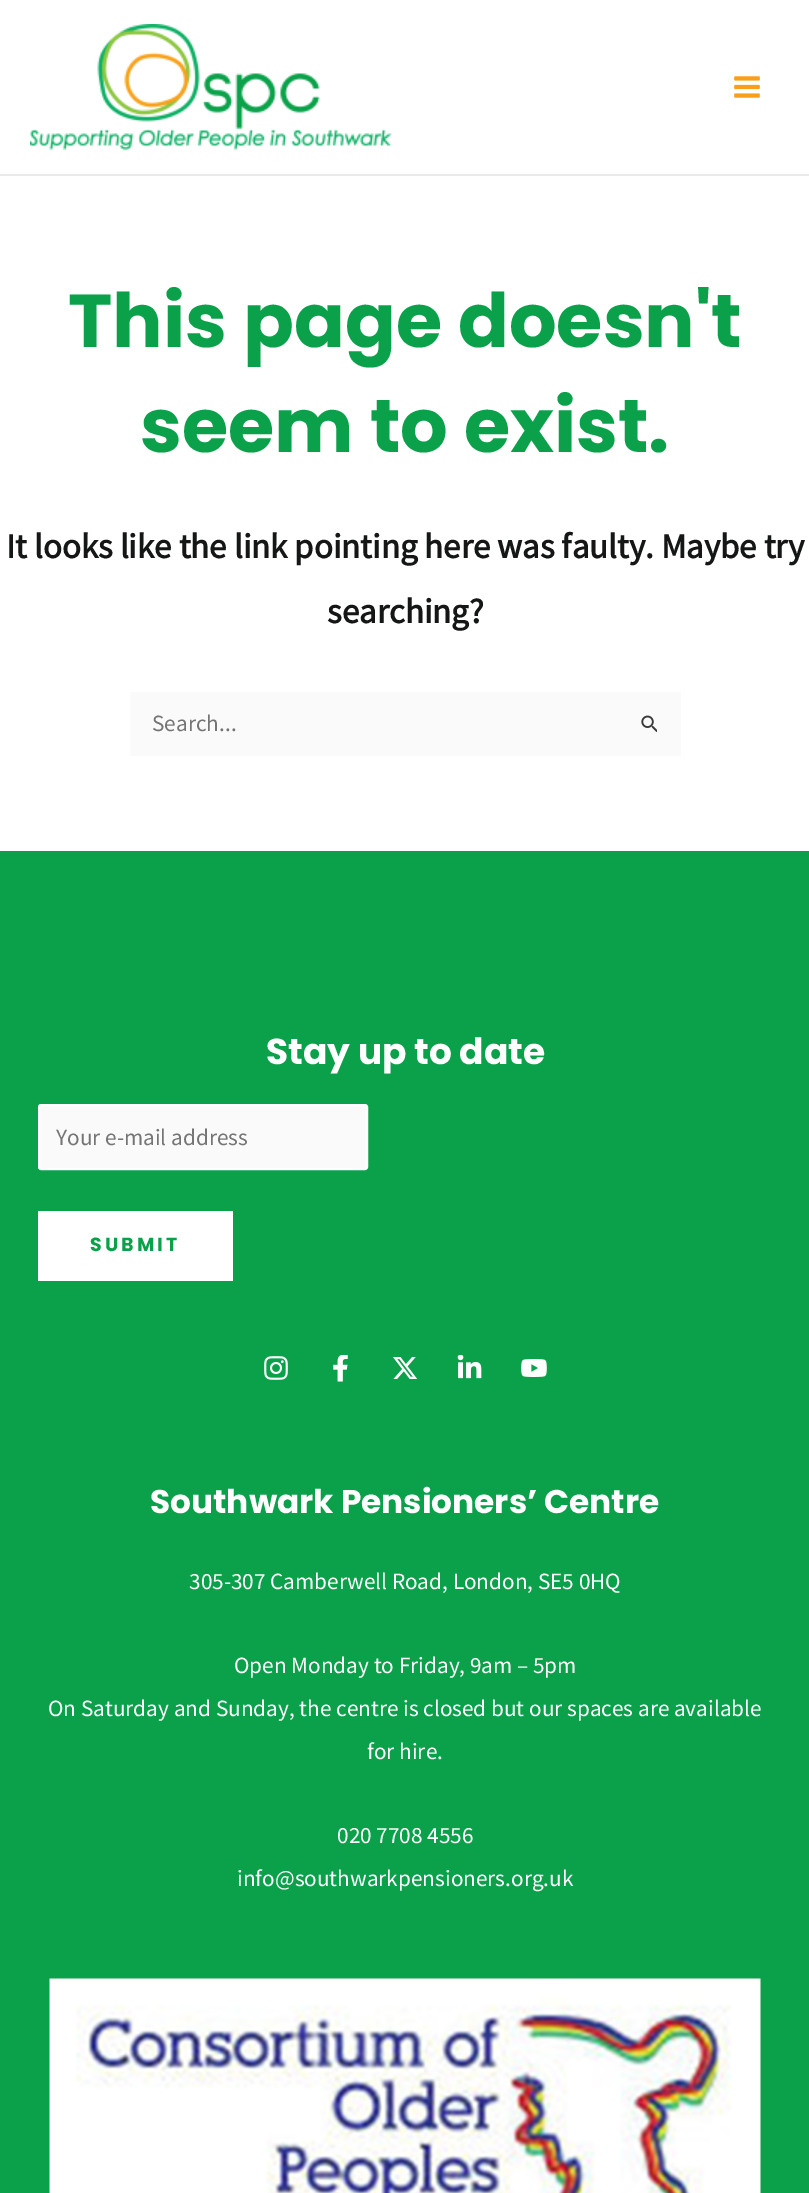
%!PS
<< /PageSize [809 2193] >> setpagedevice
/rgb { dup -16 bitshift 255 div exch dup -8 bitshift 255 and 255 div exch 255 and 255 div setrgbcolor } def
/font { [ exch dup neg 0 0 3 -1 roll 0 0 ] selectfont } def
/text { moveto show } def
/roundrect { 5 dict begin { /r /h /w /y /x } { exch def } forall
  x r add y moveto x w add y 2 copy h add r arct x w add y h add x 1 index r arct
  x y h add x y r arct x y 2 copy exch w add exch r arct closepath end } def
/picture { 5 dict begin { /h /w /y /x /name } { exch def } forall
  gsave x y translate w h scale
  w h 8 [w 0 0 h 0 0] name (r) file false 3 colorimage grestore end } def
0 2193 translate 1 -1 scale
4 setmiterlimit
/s1 { /Poppins-Bold 75 font 16#0BA14B rgb } def
/s2 { /SourceSansPro-Bold 34.9 font 16#151616 rgb } def
/s3 { /SourceSansPro-Regular 23.25 font 16#757575 rgb } def
/s4 { /Poppins-Bold 36 font 16#FFFFFF rgb } def
/s5 { /Poppins-Bold 32.8 font 16#FFFFFF rgb } def
/s6 { /SourceSansPro-Regular 23.25 font 16#FFFFFF rgb } def
16#FFFFFF rgb
0 0 809 2193 rectfill
16#EAEAEA rgb
0 174 809 2 rectfill
(pic1.raw) 30 24 362 127 picture
(pic2.raw) 734 76 26 22 picture
s1
(This page doesn't) 68 347 text
(seem to exist.) 140 452 text
s2
(It looks like the link pointing here was faulty. Maybe try) 6 558 text
(searching?) 327 623 text
16#FAFAFA rgb
129 691 553 66 2 roundrect gsave fill grestore
16#FFFFFF rgb
2 setlinewidth
stroke
s3
(Search...) 152 731 text
(pic3.raw) 641 715 16 17 picture
16#0BA14B rgb
0 851 809 1342 rectfill
s4
(Stay up to date) 266 1064 text
16#FAFAFA rgb
39 1105 328 64 2 roundrect gsave fill grestore
16#FFFFFF rgb
stroke
s3
(Your e-mail address) 56 1145 text
16#FFFFFF rgb
38 1211 195 70 rectfill
/Poppins-Bold 19 font
16#0BA14B rgb
90 1251 moveto 3 0 (SUBMIT) ashow
(pic4.raw) 264 1356 24 24 picture
(pic5.raw) 333 1355 15 27 picture
(pic6.raw) 393 1357 25 22 picture
(pic7.raw) 457 1355 25 24 picture
(pic8.raw) 521 1359 26 18 picture
s5
(Southwark Pensioners’ Centre) 150 1513 text
s6
(305-307 Camberwell Road, London, SE5 0HQ) 189 1589 text
(Open Monday to Friday, 9am – 5pm) 234 1673 text
(On Saturday and Sunday, the centre is closed but our spaces are available) 48 1716 text
(for hire.) 367 1759 text
(020 7708 4556) 337 1843 text
(info@southwarkpensioners.org.uk) 237 1886 text
(pic9.raw) 49 1978 712 215 picture
showpage
